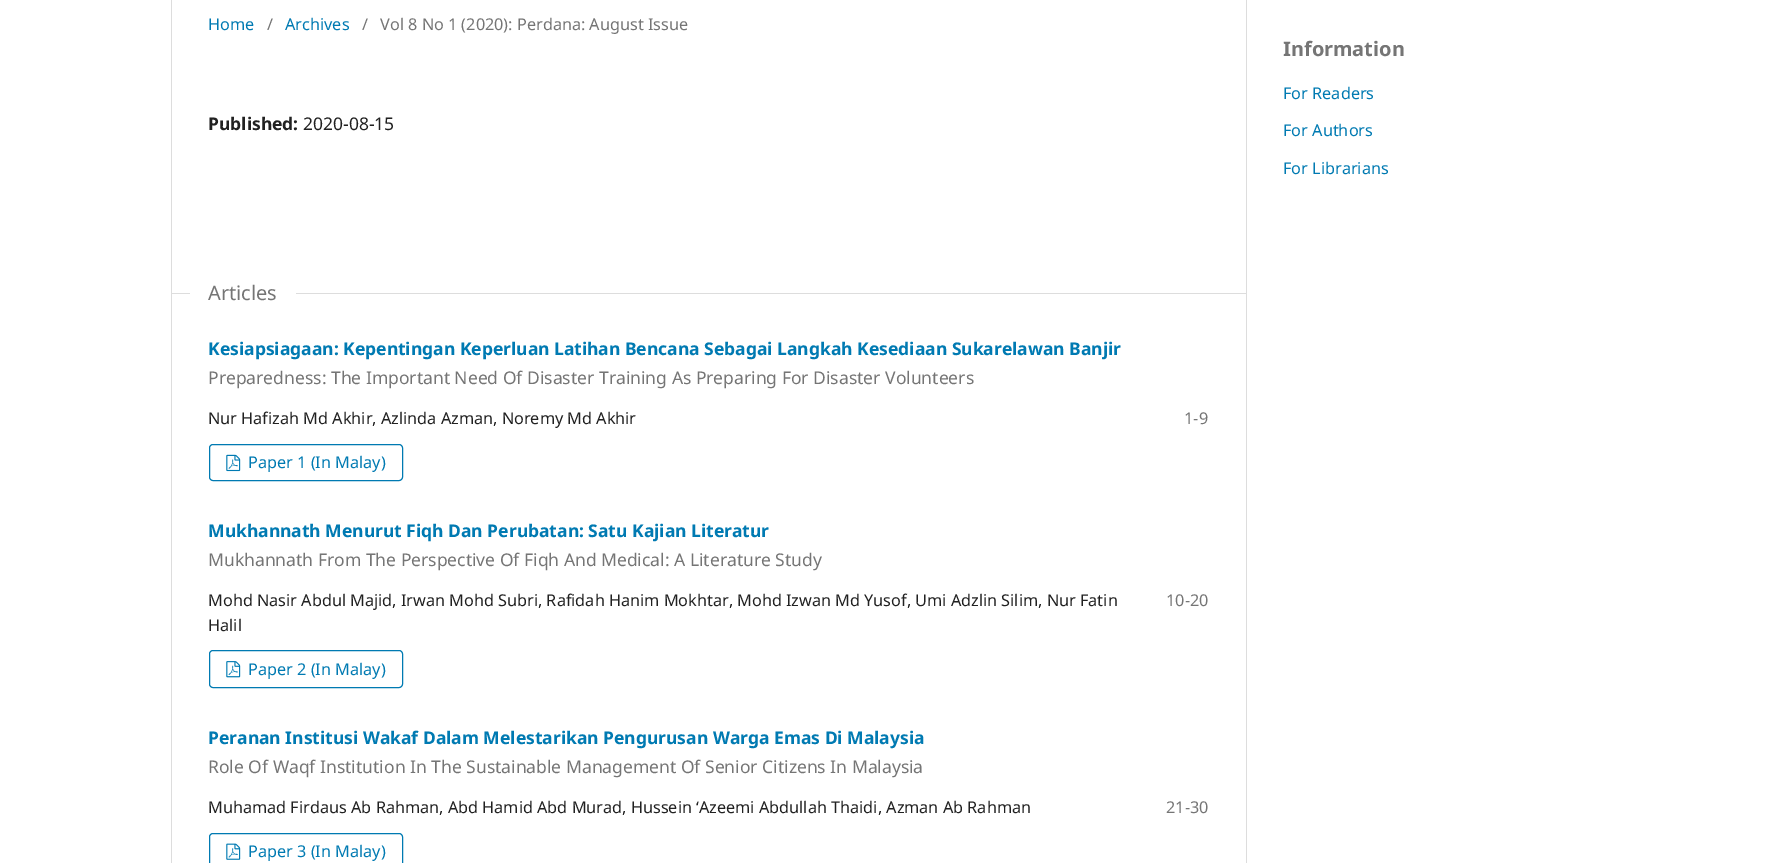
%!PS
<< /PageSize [1791 863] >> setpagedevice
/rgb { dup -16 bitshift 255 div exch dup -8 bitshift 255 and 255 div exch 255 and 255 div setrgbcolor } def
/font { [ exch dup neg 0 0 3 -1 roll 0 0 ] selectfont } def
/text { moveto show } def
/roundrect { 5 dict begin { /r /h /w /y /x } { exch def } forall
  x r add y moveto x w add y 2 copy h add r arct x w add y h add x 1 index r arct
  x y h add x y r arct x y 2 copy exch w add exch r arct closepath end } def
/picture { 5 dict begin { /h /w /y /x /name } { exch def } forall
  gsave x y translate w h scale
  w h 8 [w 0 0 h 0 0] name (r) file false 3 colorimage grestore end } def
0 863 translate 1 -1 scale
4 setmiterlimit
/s1 { /NotoSans-Regular 16.25 font 16#007AB2 rgb } def
/s2 { /NotoSans-Regular 16.25 font 16#757575 rgb } def
/s3 { /NotoSans-Bold 17.5 font 16#212121 rgb } def
/s4 { /NotoSans-Regular 17.5 font 16#212121 rgb } def
/s5 { /NotoSans-Regular 20 font 16#757575 rgb } def
/s6 { /NotoSans-Bold 17.5 font 16#007AB2 rgb } def
/s7 { /NotoSans-Regular 17.5 font 16#757575 rgb } def
/s8 { /NotoSans-Regular 16.25 font 16#212121 rgb } def
/s9 { /NotoSans-Bold 20 font 16#757575 rgb } def
16#FFFFFF rgb
0 0 1791 863 rectfill
16#DDDDDD rgb
171 0 1 863 rectfill
s1
(Home) 208 30 text
s2
(/) 267 30 text
s1
(Archives) 285 30 text
s2
(/) 362 30 text
(Vol 8 No 1 \(2020\): Perdana: August Issue) 380 30 text
s3
(Published:) 208 130 text
s4
(2020-08-15) 303 130 text
16#DDDDDD rgb
171 293 1075 1 rectfill
16#FFFFFF rgb
190 293 106 1 rectfill
s5
(Articles) 208 300 text
s6
(Kesiapsiagaan: Kepentingan Keperluan Latihan Bencana Sebagai Langkah Kesediaan Sukarelawan Banjir) 208 355 text
s7
(Preparedness: The Important Need Of Disaster Training As Preparing For Disaster Volunteers) 208 384 text
s8
(Nur Hafizah Md Akhir, Azlinda Azman, Noremy Md Akhir) 208 424 text
s2
(1-9) 1184 424 text
16#007AB2 rgb
209.5 444.5 193 36 3.5 roundrect stroke
(pic1.raw) 226 454 15 18 picture
(Paper 1 \(In Malay\)) 248 468 text
s6
(Mukhannath Menurut Fiqh Dan Perubatan: Satu Kajian Literatur) 208 537 text
s7
(Mukhannath From The Perspective Of Fiqh And Medical: A Literature Study) 208 566 text
s8
(Mohd Nasir Abdul Majid, Irwan Mohd Subri, Rafidah Hanim Mokhtar, Mohd Izwan Md Yusof, Umi Adzlin Silim, Nur Fatin) 208 606 text
(Halil) 208 631 text
s2
(10-20) 1166 606 text
16#007AB2 rgb
209.5 650.5 193 37 3.5 roundrect stroke
(pic2.raw) 226 661 15 17 picture
(Paper 2 \(In Malay\)) 248 675 text
s6
(Peranan Institusi Wakaf Dalam Melestarikan Pengurusan Warga Emas Di Malaysia) 208 744 text
s7
(Role Of Waqf Institution In The Sustainable Management Of Senior Citizens In Malaysia) 208 773 text
s8
(Muhamad Firdaus Ab Rahman, Abd Hamid Abd Murad, Hussein ‘Azeemi Abdullah Thaidi, Azman Ab Rahman) 208 813 text
s2
(21-30) 1166 813 text
16#007AB2 rgb
209.5 833.5 193 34 3.5 roundrect stroke
(pic3.raw) 226 843 15 17 picture
(Paper 3 \(In Malay\)) 248 857 text
16#DDDDDD rgb
1246 0 1 863 rectfill
s9
(Information) 1283 56 text
s1
(For Readers) 1283 99 text
(For Authors) 1283 136 text
(For Librarians) 1283 174 text
showpage
